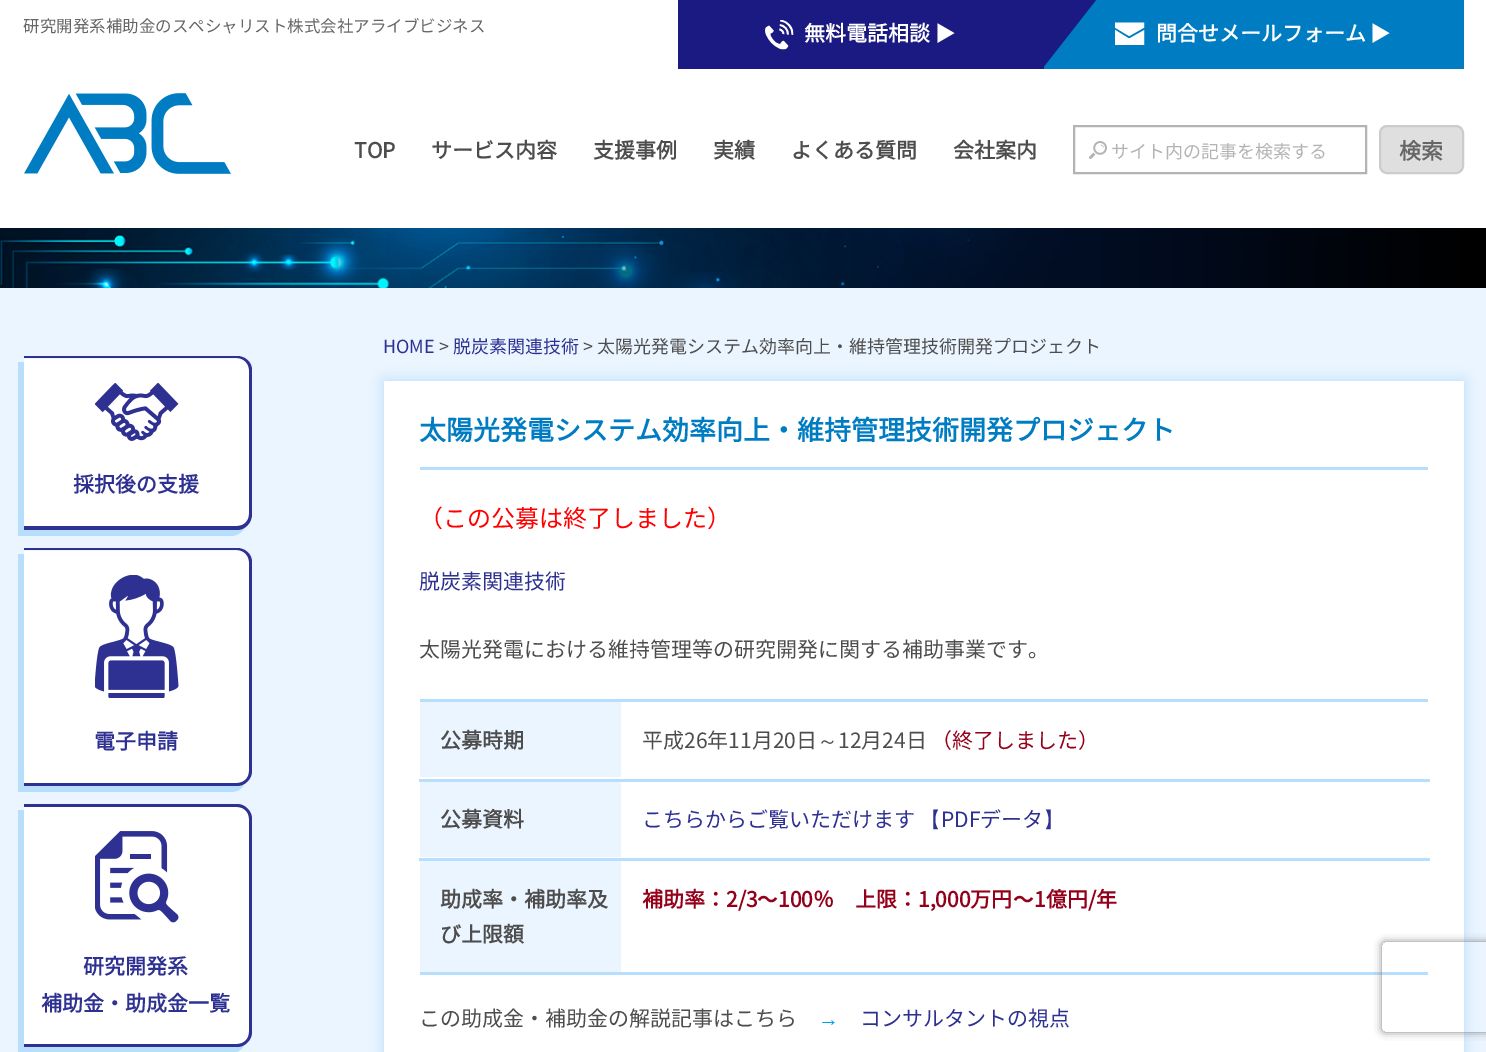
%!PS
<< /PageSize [1486 1052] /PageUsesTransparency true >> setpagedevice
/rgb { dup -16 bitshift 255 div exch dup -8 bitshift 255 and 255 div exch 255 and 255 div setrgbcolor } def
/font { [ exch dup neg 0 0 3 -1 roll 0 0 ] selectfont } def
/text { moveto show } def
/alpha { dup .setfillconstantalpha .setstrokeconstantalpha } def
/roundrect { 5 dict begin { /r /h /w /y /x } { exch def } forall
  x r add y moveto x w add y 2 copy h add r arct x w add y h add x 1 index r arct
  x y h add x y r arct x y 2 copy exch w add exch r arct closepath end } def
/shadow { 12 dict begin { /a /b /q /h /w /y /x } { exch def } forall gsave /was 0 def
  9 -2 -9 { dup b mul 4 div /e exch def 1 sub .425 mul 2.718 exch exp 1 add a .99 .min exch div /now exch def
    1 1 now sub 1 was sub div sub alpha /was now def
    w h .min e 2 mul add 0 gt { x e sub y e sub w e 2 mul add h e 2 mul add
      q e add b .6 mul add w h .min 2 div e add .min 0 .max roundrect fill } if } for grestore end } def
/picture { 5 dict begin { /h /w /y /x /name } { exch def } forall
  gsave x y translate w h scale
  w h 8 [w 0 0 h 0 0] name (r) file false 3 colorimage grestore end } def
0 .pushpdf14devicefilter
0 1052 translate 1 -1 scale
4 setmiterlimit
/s1 { /NotoSansJP-Regular 16.5 font 16#666666 rgb } def
/s2 { /NotoSansJP-Bold 21 font 16#FFFFFF rgb } def
/s3 { /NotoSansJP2-Bold 21 font 16#FFFFFF rgb } def
/s4 { /NotoSansJP-Bold 21 font 16#4D4D4D rgb } def
/s5 { /NotoSansJP-Regular 18 font 16#B3B3B3 rgb } def
/s6 { /NotoSansJP-Bold 22 font 16#666666 rgb } def
/s7 { /NotoSansJP-Bold 21 font 16#2E3192 rgb } def
/s8 { /NotoSansJP-Regular 18 font 16#2E3192 rgb } def
/s9 { /NotoSansJP-Regular 18 font 16#4D4D4D rgb } def
/s10 { /NotoSansJP-Bold 27 font 16#007CC2 rgb } def
/s11 { /NotoSansJP-Regular 24 font 16#FF0000 rgb } def
/s12 { /NotoSansJP-Regular 21 font 16#2E3192 rgb } def
/s13 { /NotoSansJP-Regular 21 font 16#4D4D4D rgb } def
/s14 { /WenQuanYiZenHei-Medium 21 font 16#4D4D4D rgb } def
/s15 { /NotoSansJP-Regular 21 font 16#94001A rgb } def
/s16 { /WenQuanYiZenHei-Medium 21 font 16#2E3192 rgb } def
/s17 { /NotoSansJP-Bold 21 font 16#94001A rgb } def
/s18 { /NotoSansJP2-Bold 21 font 16#94001A rgb } def
/s19 { /LiberationSans-Bold 21 font 16#00A1E9 rgb } def
16#FFFFFF rgb
0 0 1486 1052 rectfill
s1
(研究開発系補助金のスペシャリスト株式会社アライブビジネス) 23 32 text
16#1A1A82 rgb
678 0 366 69 rectfill
(pic1.raw) 765 20 29 30 picture
s2
(無料電話相談) 804 41 text
s3
(▶) 935 41 text
16#007CC2 rgb
1044 0 420 69 rectfill
16#1A1A82 rgb
1042 69 moveto 1042 0 lineto 1096 0 lineto closepath fill
(pic2.raw) 1115 22 30 23 picture
s2
(問合せメールフォーム) 1156 41 text
s3
(▶) 1370 41 text
(pic3.raw) 24 93 207 81 picture
s4
(TOP) 354 158 text
(サービス内容) 431 158 text
(支援事例) 593 158 text
(実績) 713 158 text
(よくある質問) 791 158 text
(会社案内) 953 158 text
16#B3B3B3 rgb
2 setlinewidth
1074 126 292 47 rectstroke
(pic4.raw) 1089 141 18 18 picture
s5
(サイト内の記事を検索する) 1111 158 text
16#DFDFDF rgb
1380 126 83 47 7 roundrect gsave fill grestore
16#CCCCCC rgb
stroke
s6
(検索) 1399 159 text
(pic5.raw) 0 228 1486 60 picture
16#EBF5FF rgb
0 288 1486 764 rectfill
16#B7DEFC rgb
18 362 moveto 18 536 lineto 231 536 lineto 237 536 242 533 245 527 curveto 242 529 240 530 237 530 curveto 24 530 lineto 24 362 lineto closepath fill
16#FFFFFF rgb
24 359 moveto 237 359 lineto 243.5 359 249 364.5 249 371 curveto 249 515 lineto 249 521.5 243.5 527 237 527 curveto 24 527 lineto closepath fill
16#2E3192 rgb
24 356 moveto 237 356 lineto 245 356 252 362 252 370 curveto 252 514 lineto 252 523 245 530 237 530 curveto 24 530 lineto closepath 24 358 moveto 237 358 lineto 244 358 249 364 249 370 curveto 249 514 lineto 249 521 244 526 237 526 curveto 24 526 lineto closepath eofill
(pic6.raw) 95 383 84 58 picture
s7
(採択後の支援) 73 492 text
16#B7DEFC rgb
18 554 moveto 18 792 lineto 231 792 lineto 237 792 242 789 244 784 curveto 242 785 240 786 237 786 curveto 24 786 lineto 24 554 lineto closepath fill
16#FFFFFF rgb
24 551 moveto 237 551 lineto 243.5 551 249 556.5 249 563 curveto 249 771 lineto 249 777.5 243.5 783 237 783 curveto 24 783 lineto closepath fill
16#2E3192 rgb
24 548 moveto 237 548 lineto 245 548 252 554 252 562 curveto 252 771 lineto 252 779 245 786 237 786 curveto 24 786 lineto closepath 24 550 moveto 237 550 lineto 244 550 249 556 249 562 curveto 249 771 lineto 249 778 244 783 237 783 curveto 24 783 lineto closepath eofill
(pic7.raw) 95 575 84 123 picture
(電子申請) 94 749 text
16#B7DEFC rgb
18 810 moveto 18 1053 lineto 231 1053 lineto 237 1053 242 1050 244 1045 curveto 242 1046 240 1047 237 1047 curveto 24 1047 lineto 24 810 lineto closepath fill
16#FFFFFF rgb
24 807 moveto 237 807 lineto 243.5 807 249 812.5 249 819 curveto 249 1032 lineto 249 1038.5 243.5 1044 237 1044 curveto 24 1044 lineto closepath fill
16#2E3192 rgb
24 804 moveto 237 804 lineto 245 804 252 811 252 819 curveto 252 1032 lineto 252 1040 245 1047 237 1047 curveto 24 1047 lineto closepath 24 807 moveto 237 807 lineto 244 807 249 812 249 819 curveto 249 1032 lineto 249 1039 244 1044 237 1044 curveto 24 1044 lineto closepath eofill
(pic8.raw) 95 831 84 92 picture
(研究開発系) 83 974 text
(補助金・助成金一覧) 41 1011 text
s8
(HOME) 383 353 text
s9
(>) 439 353 text
s8
(脱炭素関連技術) 453 353 text
s9
(> 太陽光発電システム効率向上・維持管理技術開発プロジェクト) 583 353 text
16#B7DEFC rgb
384 381 1080 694 0 7.5 1 shadow
16#FFFFFF rgb
384 381 1080 671 rectfill
16#B7DEFC rgb
420 467 1008 3 rectfill
s10
(太陽光発電システム効率向上・維持管理技術開発プロジェクト) 419 440 text
s11
(（この公募は終了しました）) 419 527 text
s12
(脱炭素関連技術) 419 589 text
s13
(太陽光発電における維持管理等の研究開発に関する補助事業です。) 419 657 text
16#B7DEFC rgb
420 699 1008 3 rectfill
420 972 1008 3 rectfill
16#EBF5FF rgb
420 702 201 75 rectfill
s4
(公募時期) 440 748 text
16#B7DEFC rgb
419 779 1011 3 rectfill
s13
(平成26年11月20日) 642 748 text
s14
(～) 817 748 text
s13
(12月24日) 838 748 text
s15
(（終了しました）) 931 748 text
16#EBF5FF rgb
420 782 201 75 rectfill
s4
(公募資料) 440 827 text
16#B7DEFC rgb
419 858 1011 3 rectfill
s12
(こちらからご覧いただけます) 642 827 text
s16
(【) 920 827 text
s12
(PDFデータ) 941 827 text
s16
(】) 1043 827 text
16#EBF5FF rgb
420 861 201 111 rectfill
s4
(助成率・補助率及) 440 907 text
(び上限額) 440 942 text
s17
(補助率：2/3) 642 907 text
s18
(～) 757 907 text
s17
(100％　上限：1,000万円) 778 907 text
s18
(～) 1013 907 text
s17
(1億円/年) 1034 907 text
s13
(この助成金・補助金の解説記事はこちら) 419 1026 text
s19
(→) 818 1026 text
s12
(コンサルタントの視点) 860 1026 text
gsave
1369 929 moveto 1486 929 lineto 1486 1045 lineto 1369 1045 lineto closepath 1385 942 moveto 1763 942 lineto 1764.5 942 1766 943.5 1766 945 curveto 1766 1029 lineto 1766 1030.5 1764.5 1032 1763 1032 curveto 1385 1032 lineto 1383.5 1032 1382 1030.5 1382 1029 curveto 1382 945 lineto 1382 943.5 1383.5 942 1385 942 curveto closepath eoclip newpath
16#808080 rgb
1382 942 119 90 3 4 1 shadow
grestore
.poppdf14devicefilter showpage
